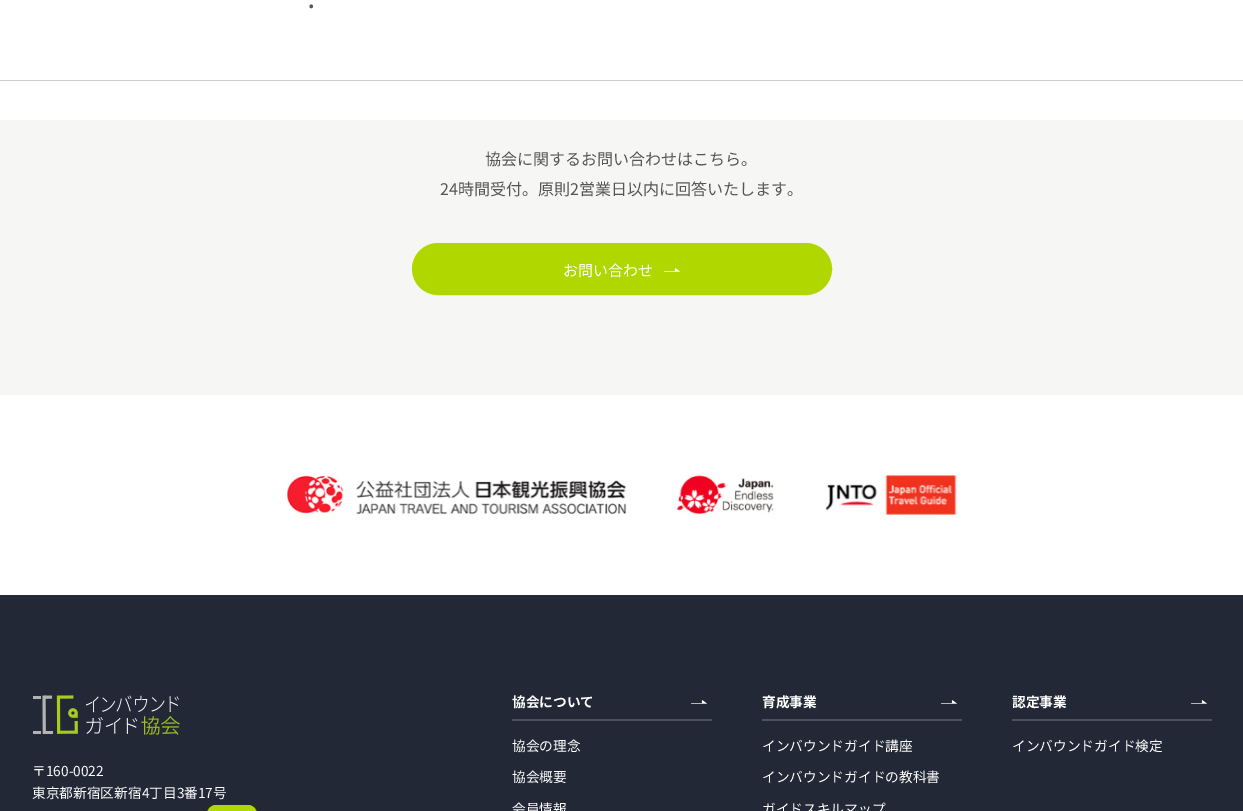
%!PS
<< /PageSize [1243 811] >> setpagedevice
/rgb { dup -16 bitshift 255 div exch dup -8 bitshift 255 and 255 div exch 255 and 255 div setrgbcolor } def
/font { [ exch dup neg 0 0 3 -1 roll 0 0 ] selectfont } def
/text { moveto show } def
/roundrect { 5 dict begin { /r /h /w /y /x } { exch def } forall
  x r add y moveto x w add y 2 copy h add r arct x w add y h add x 1 index r arct
  x y h add x y r arct x y 2 copy exch w add exch r arct closepath end } def
/picture { 5 dict begin { /h /w /y /x /name } { exch def } forall
  gsave x y translate w h scale
  w h 8 [w 0 0 h 0 0] name (r) file false 3 colorimage grestore end } def
0 811 translate 1 -1 scale
4 setmiterlimit
/s1 { /NotoSansJP-Bold 20 font 16#555555 rgb } def
/s2 { /NotoSansJP-Regular 16 font 16#555555 rgb } def
/s3 { /NotoSansJP-Regular 15 font 16#FFFFFF rgb } def
/s4 { /NotoSansJP-Regular 13.7 font 16#FFFFFF rgb } def
/s5 { /NotoSansJP-Bold 13.7 font 16#FFFFFF rgb } def
16#FFFFFF rgb
0 0 1243 811 rectfill
s1
(.) 308 8 text
16#CCCCCC rgb
0 80 1243 1 rectfill
16#F6F7F5 rgb
0 120 1243 275 rectfill
s2
(協会に関するお問い合わせはこちら。) 485 165 text
(24時間受付。原則2営業日以内に回答いたします。) 440 195 text
16#B0D700 rgb
413 244 418 50 25 roundrect gsave fill grestore
2 setlinewidth
stroke
s3
(お問い合わせ) 563 276 text
(pic1.raw) 664 268 16 4 picture
(pic2.raw) 287 475 340 40 picture
(pic3.raw) 677 475 97 40 picture
(pic4.raw) 825 475 132 40 picture
16#232837 rgb
0 595 1243 216 rectfill
(pic5.raw) 33 695 147 40 picture
s4
(〒160-0022) 32 776 text
(東京都新宿区新宿4丁目3番17号) 32 798 text
16#B0D700 rgb
208 806 48 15 8 roundrect gsave fill grestore
stroke
16#4D515C rgb
512 719 200 2 rectfill
s5
(協会について) 512 707 text
(pic6.raw) 691 700 16 4 picture
s4
(協会の理念) 512 751 text
(協会概要) 512 782 text
(会員情報) 512 814 text
16#4D515C rgb
762 719 200 2 rectfill
s5
(育成事業) 762 707 text
(pic6.raw) 941 700 16 4 picture
s4
(インバウンドガイド講座) 762 751 text
(インバウンドガイドの教科書) 762 782 text
(ガイドスキルマップ) 762 814 text
16#4D515C rgb
1012 719 200 2 rectfill
s5
(認定事業) 1012 707 text
(pic6.raw) 1191 700 16 4 picture
s4
(インバウンドガイド検定) 1012 751 text
showpage
